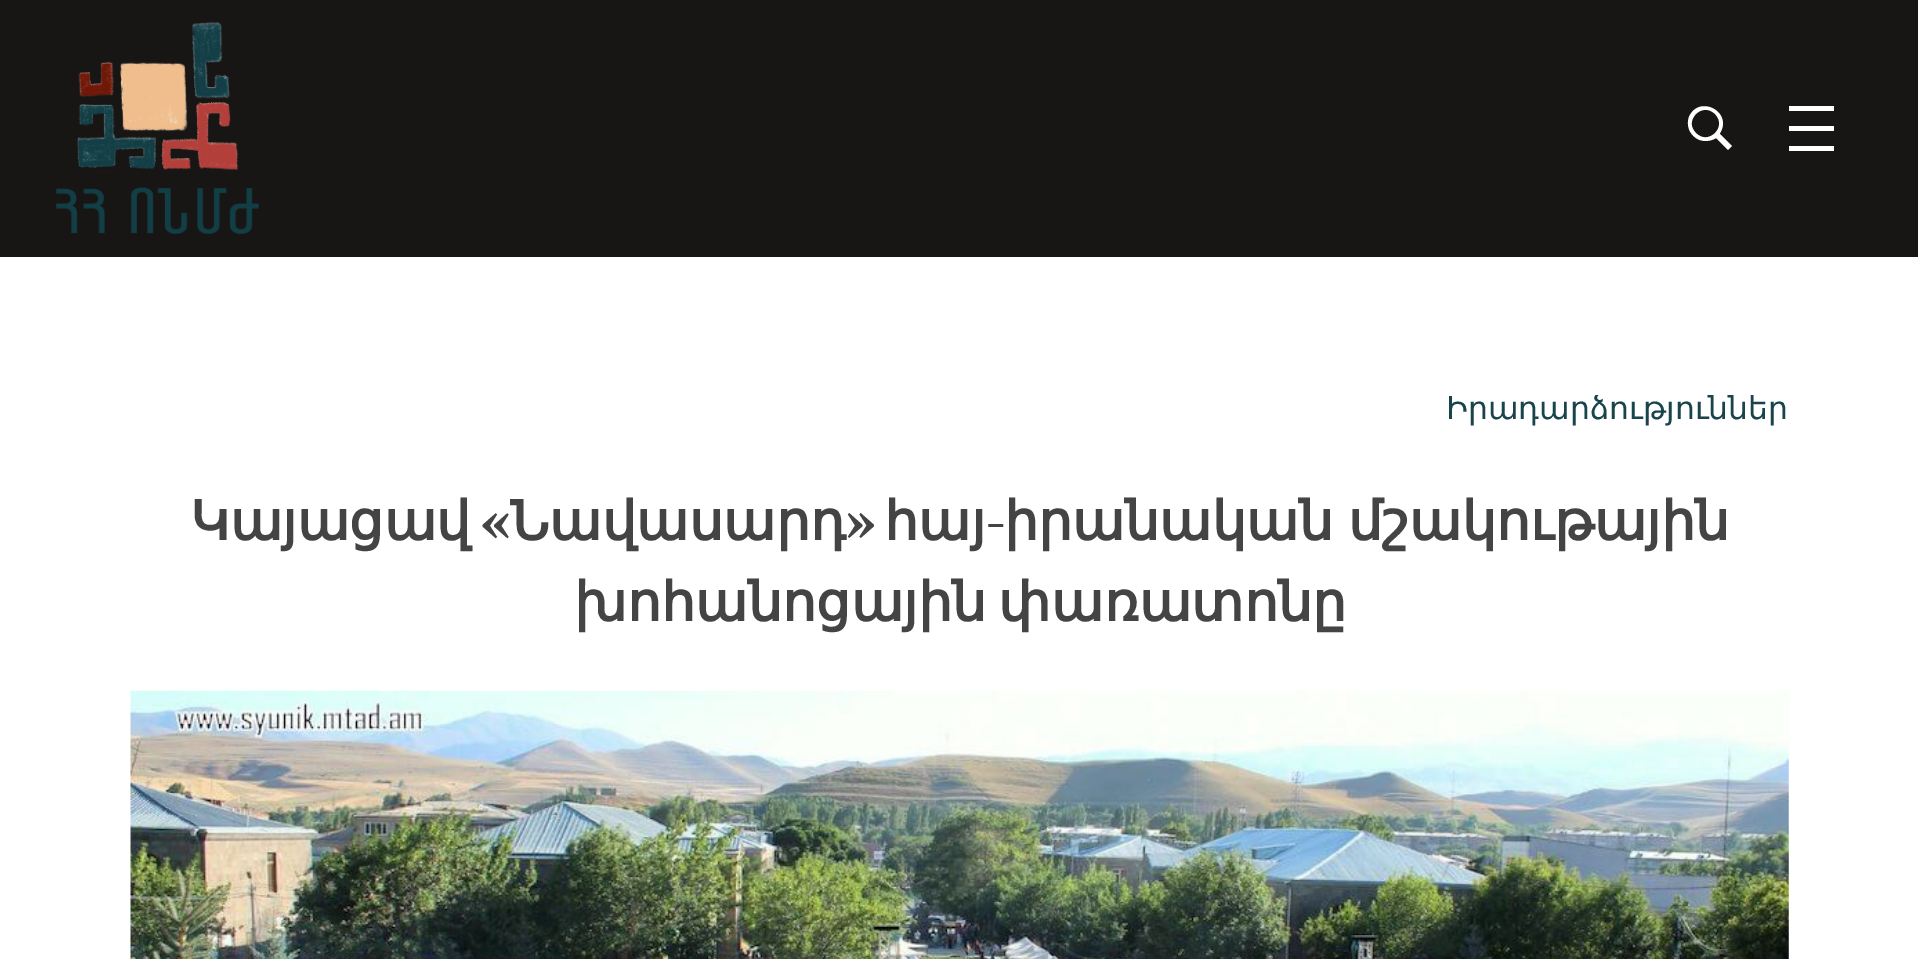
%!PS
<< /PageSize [1918 959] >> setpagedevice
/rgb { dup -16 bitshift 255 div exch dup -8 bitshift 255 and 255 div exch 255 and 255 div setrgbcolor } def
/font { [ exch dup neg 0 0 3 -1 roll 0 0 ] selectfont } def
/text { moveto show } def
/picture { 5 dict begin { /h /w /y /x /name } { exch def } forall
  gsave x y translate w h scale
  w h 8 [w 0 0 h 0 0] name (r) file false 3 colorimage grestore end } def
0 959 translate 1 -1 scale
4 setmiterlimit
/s1 { /DejaVuSans-Regular 31.5 font 16#1A444B rgb } def
/s2 { /DejaVuSans-Bold 54 font 16#444444 rgb } def
/s3 { /DMSerifDisplay-Bold 54 font 16#444444 rgb } def
16#FFFFFF rgb
0 0 1918 959 rectfill
16#181515 rgb
0 0 1918 257 rectfill
(pic1.raw) 56 22 203 212 picture
16#FFFFFF rgb
1720 133 moveto 1733 112 1699 94 1689 117 curveto 1687 122 1688 129 1691 133 curveto 1697 142 1708 143 1716 138 curveto 1728 150 lineto 1732 146 lineto 1720 134 lineto closepath 1715 114 moveto 1728 127 1708 146 1696 133 curveto 1683 121 1702 101 1715 114 curveto closepath fill
1789 106 45 5 rectfill
1789 126 45 5 rectfill
1789 146 45 5 rectfill
s1
(Իրադարձություններ) 1446 419 text
s2
(Կայացավ) 190 540 text
s3
(«) 481 540 text
s2
(Նավասարդ) 510 540 text
s3
(») 845 540 text
s2
(հայ) 884 540 text
s3
(-) 986 540 text
/DejaVuSans-Bold 54 font
1004 540 moveto -2 0 32 (իրանական մշակութային) widthshow
574 621 moveto -5 0 32 (խոհանոցային փառատոնը) widthshow
(pic2.raw) 130 690 1659 269 picture
showpage
